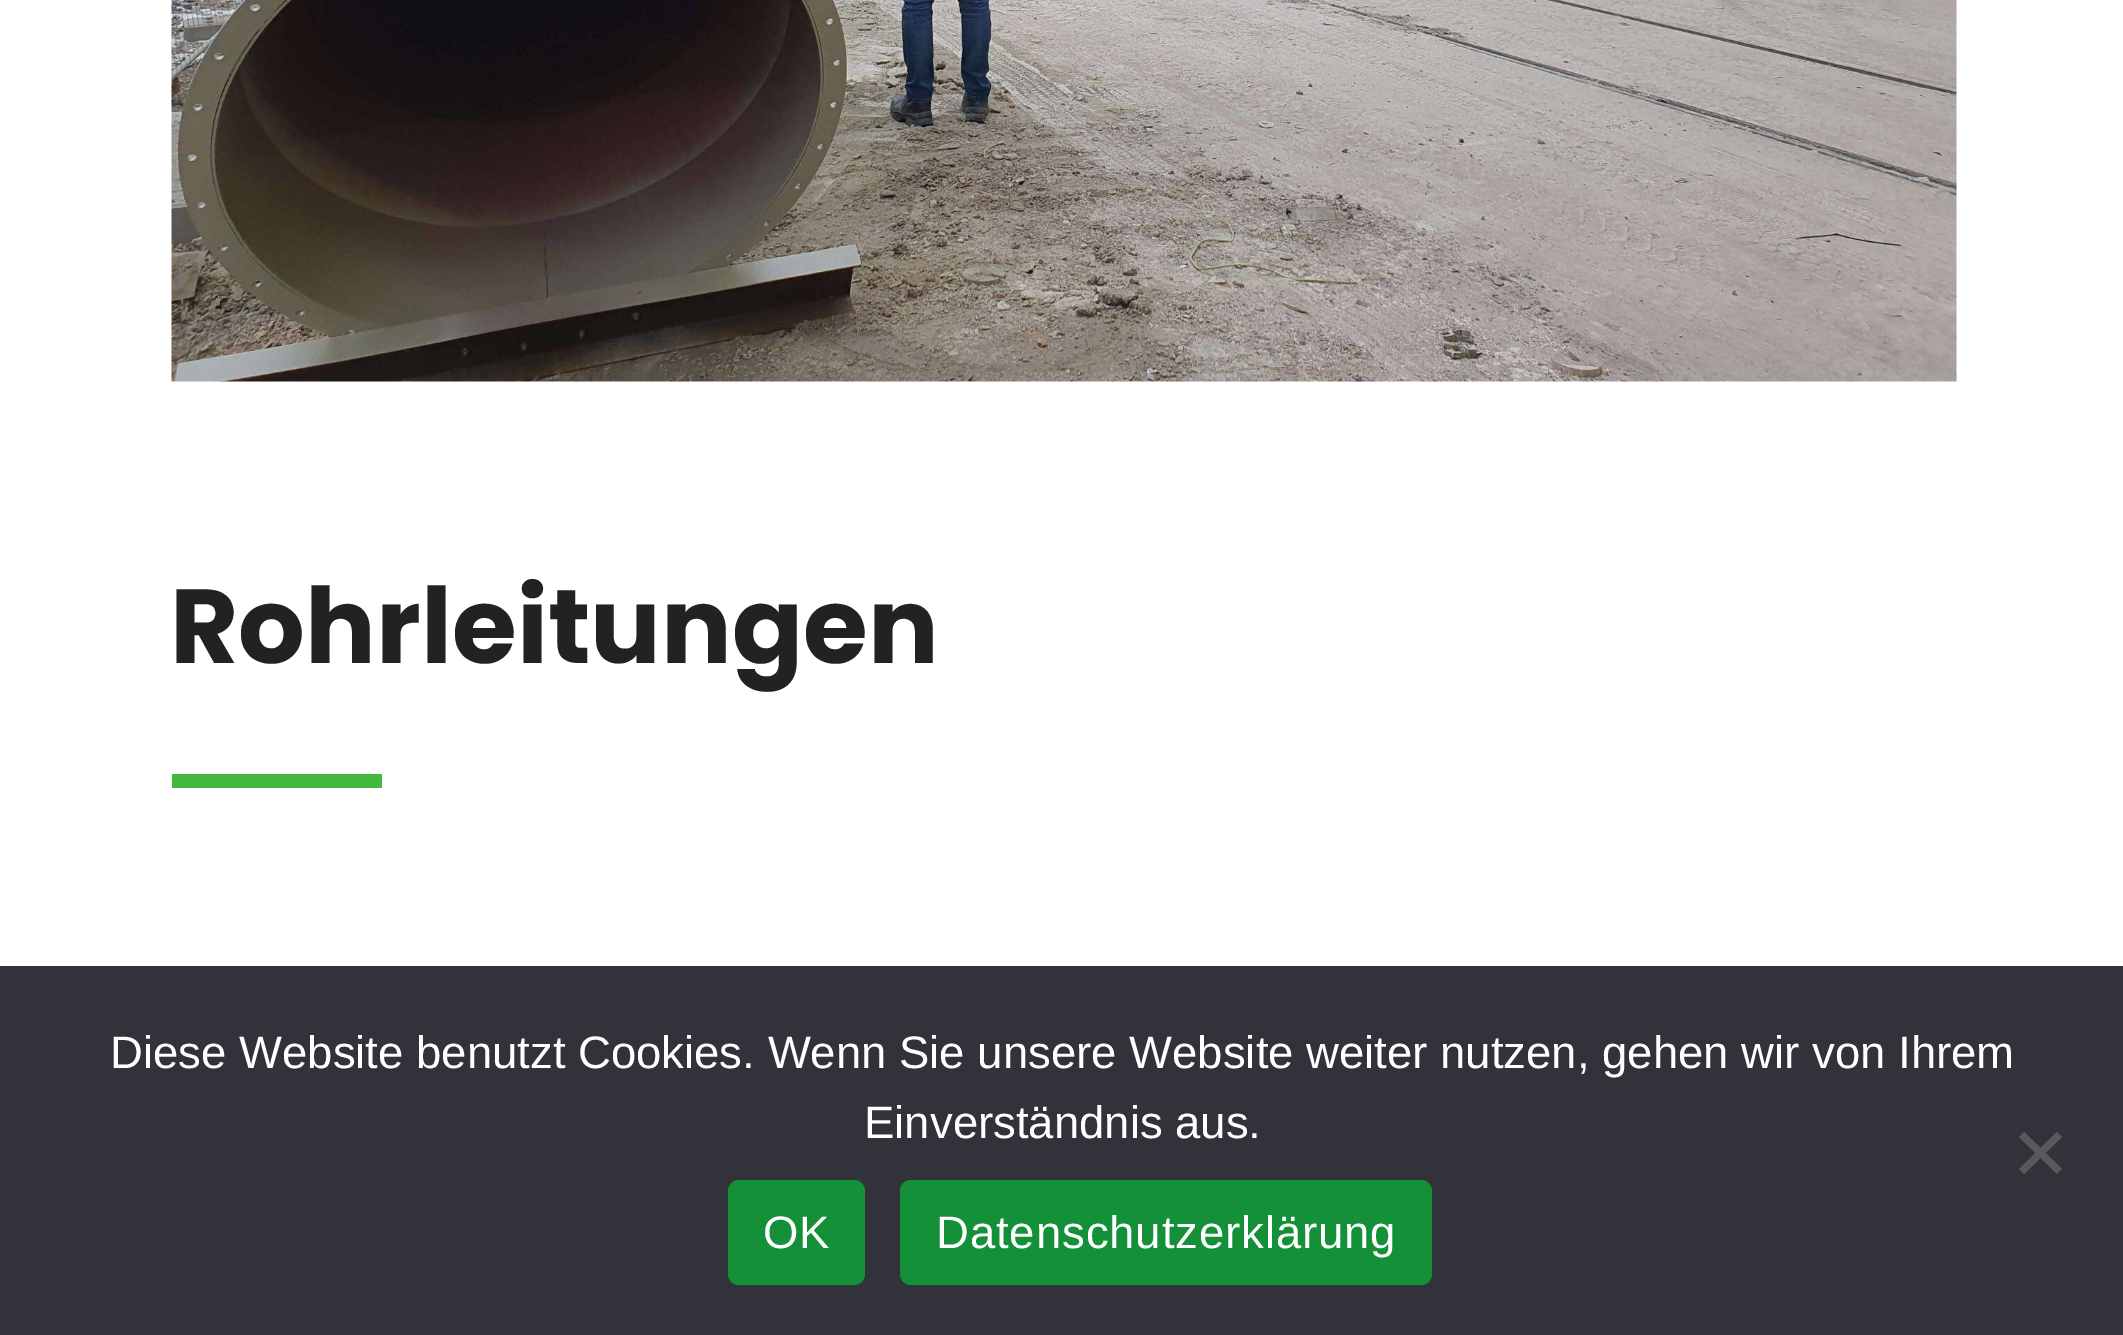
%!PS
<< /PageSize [2123 1335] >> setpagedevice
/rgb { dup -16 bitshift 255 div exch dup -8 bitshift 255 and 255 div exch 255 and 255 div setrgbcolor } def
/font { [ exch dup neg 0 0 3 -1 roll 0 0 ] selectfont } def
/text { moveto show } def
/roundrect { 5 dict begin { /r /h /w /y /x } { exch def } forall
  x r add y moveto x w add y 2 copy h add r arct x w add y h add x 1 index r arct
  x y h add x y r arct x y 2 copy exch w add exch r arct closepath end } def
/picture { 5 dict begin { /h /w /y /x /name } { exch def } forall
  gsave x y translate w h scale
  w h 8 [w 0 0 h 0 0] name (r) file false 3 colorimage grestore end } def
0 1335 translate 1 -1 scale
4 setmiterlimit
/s1 { /Poppins-Bold 105 font 16#222222 rgb } def
/s2 { /LiberationSans-Regular 45.5 font 16#FFFFFF rgb } def
16#FFFFFF rgb
0 0 2123 1335 rectfill
(pic1.raw) 171 0 1786 382 picture
s1
(Rohrleitungen) 170 663 text
16#44B73E rgb
172 774 210 14 rectfill
16#32323A rgb
0 966 2123 369 rectfill
s2
(Diese Website benutzt Cookies. Wenn Sie unsere Website weiter nutzen, gehen wir von Ihrem) 110 1068 text
(Einverständnis aus.) 864 1138 text
16#59595D rgb
2057 1132 moveto 2062 1137 lineto 2024 1174 lineto 2019 1169 lineto closepath fill
2019 1137 moveto 2024 1132 lineto 2062 1169 lineto 2057 1174 lineto closepath fill
16#149138 rgb
728 1180 137 105 11 roundrect fill
16#FFFFFF rgb
763 1248 moveto 0.9 0 (OK) ashow
16#149138 rgb
900 1180 532 105 11 roundrect fill
16#FFFFFF rgb
936 1248 moveto 0.9 0 (Datenschutzerklärung) ashow
showpage
